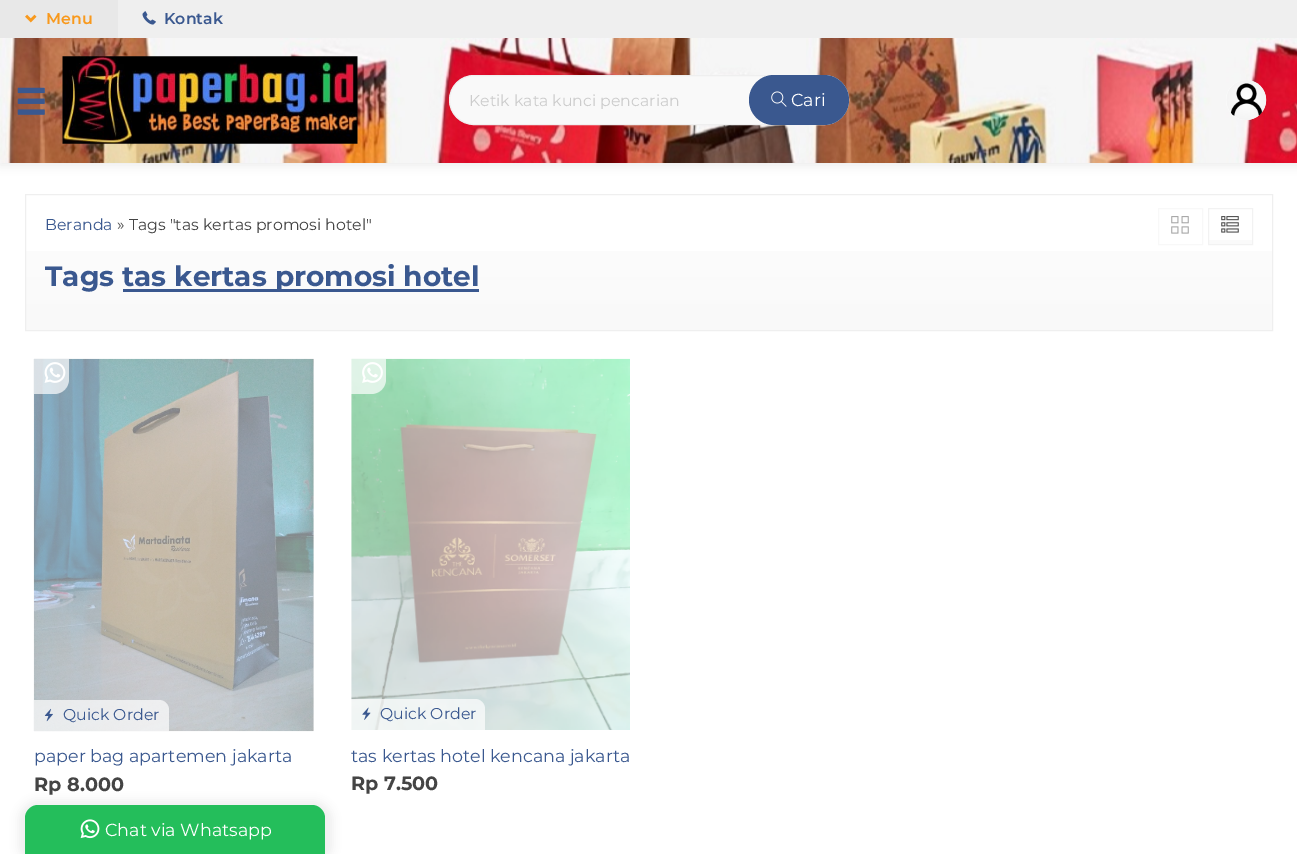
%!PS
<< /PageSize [1297 854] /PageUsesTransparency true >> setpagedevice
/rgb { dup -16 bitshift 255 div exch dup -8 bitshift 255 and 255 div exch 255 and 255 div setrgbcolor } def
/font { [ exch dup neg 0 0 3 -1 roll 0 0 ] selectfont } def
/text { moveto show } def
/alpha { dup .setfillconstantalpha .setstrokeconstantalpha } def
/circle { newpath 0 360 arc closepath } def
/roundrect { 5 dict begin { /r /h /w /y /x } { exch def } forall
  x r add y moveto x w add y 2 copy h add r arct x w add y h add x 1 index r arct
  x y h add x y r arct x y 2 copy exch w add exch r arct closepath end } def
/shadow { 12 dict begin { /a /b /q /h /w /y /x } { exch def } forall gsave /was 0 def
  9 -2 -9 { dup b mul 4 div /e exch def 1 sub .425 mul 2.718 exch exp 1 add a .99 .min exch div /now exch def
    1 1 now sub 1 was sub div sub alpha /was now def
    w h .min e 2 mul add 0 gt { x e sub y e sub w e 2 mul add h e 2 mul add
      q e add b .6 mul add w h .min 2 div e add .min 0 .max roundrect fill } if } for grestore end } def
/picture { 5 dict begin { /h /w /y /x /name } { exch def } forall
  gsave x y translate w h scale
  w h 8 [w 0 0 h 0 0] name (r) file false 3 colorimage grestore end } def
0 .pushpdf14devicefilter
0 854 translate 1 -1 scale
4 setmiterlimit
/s1 { /Montserrat-SemiBold 15.75 font 16#F8991D rgb } def
/s2 { /Montserrat-SemiBold 15.75 font 16#3A588F rgb } def
/s3 { /Montserrat-Regular 15.75 font 16#CCCCCC rgb } def
/s4 { /Montserrat-Regular 17.5 font 16#FFFFFF rgb } def
/s5 { /Montserrat-Regular 15.75 font 16#3A588F rgb } def
/s6 { /Montserrat-Regular 15.75 font 16#444444 rgb } def
/s7 { /Montserrat-Bold 28 font 16#3A588F rgb } def
/s8 { /Montserrat-Regular 17.5 font 16#3A588F rgb } def
/s9 { /Montserrat-Bold 19.25 font 16#444444 rgb } def
16#FFFFFF rgb
0 0 1297 854 rectfill
16#000000 rgb
0 3 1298 162 0 5 0.08 shadow
16#EFEFEF rgb
118 0 1179 38 rectfill
16#E8E8E8 rgb
0 0 118 38 rectfill
(pic1.raw) 25 14 12 9 picture
s1
(Menu) 46 24 text
(pic2.raw) 142 11 14 14 picture
s2
(Kontak) 164 24 text
(pic3.raw) 0 38 1297 125 picture
(pic4.raw) 17 87 28 28 picture
(pic5.raw) 62 56 296 88 picture
16#F9F9F9 rgb
449.5 75.5 399 49 24.5 roundrect gsave fill grestore
16#EFEFEF rgb
stroke
s3
(Ketik kata kunci pencarian) 469 106 text
16#3A588F rgb
749 75 100 50 25 roundrect fill
(pic6.raw) 771 91 16 16 picture
s4
(Cari) 791 106 text
1246 100 20 circle fill
(pic7.raw) 1226 80 41 40 picture
gsave 26 251 moveto 1272 251 lineto 1272 330 lineto 26 330 lineto closepath clip newpath
<< /ShadingType 2 /ColorSpace /DeviceRGB /Coords [649 195 649 330] /Extend [true true] /Function << /FunctionType 2 /Domain [0 1] /C0 [1 1 1] /C1 [0.976 0.976 0.976] /N 1 >> >> shfill grestore
16#EFEFEF rgb
25.5 194.5 1247 136 rectstroke
s5
(Beranda) 45 230 text
s6
(» Tags "tas kertas promosi hotel") 117 230 text
16#F8F8F8 rgb
1158.5 208.5 44 36 rectstroke
gsave 1209 240 moveto 1252 240 lineto 1252 244 lineto 1209 244 lineto closepath clip newpath
<< /ShadingType 2 /ColorSpace /DeviceRGB /Coords [1230 244 1230 209] /Extend [true true] /Function << /FunctionType 2 /Domain [0 1] /C0 [0.98 0.98 0.98] /C1 [1 1 1] /N 1 >> >> shfill grestore
16#F2F2F2 rgb
1208.5 208.5 44 36 rectstroke
(pic8.raw) 1171 216 18 18 picture
(pic9.raw) 1221 216 18 17 picture
s7
(Tags) 45 286 text
123 289 356 3 rectfill
(tas kertas promosi hotel) 122 286 text
(pic10.raw) 33 358 281 374 picture
0.69 alpha
16#FFFFFF rgb
34 700 moveto 159 700 lineto 164.5 700 169 704.5 169 710 curveto 169 731 lineto 34 731 lineto closepath fill
1 alpha
(pic11.raw) 44 708 9 14 picture
s5
(Quick Order) 63 720 text
0.69 alpha
16#FFFFFF rgb
34 359 moveto 69 359 lineto 69 379 lineto 69 387.5 62.5 394 54 394 curveto 34 394 lineto closepath fill
1 alpha
(pic12.raw) 44 362 22 21 picture
s8
(paper bag apartemen jakarta) 34 762 text
s9
(Rp 8.000) 34 791 text
(pic13.raw) 351 358 279 372 picture
0.69 alpha
16#FFFFFF rgb
351 699 moveto 475 699 lineto 480.5 699 485 703.5 485 709 curveto 485 730 lineto 351 730 lineto closepath fill
1 alpha
(pic14.raw) 362 707 9 13 picture
s5
(Quick Order) 380 719 text
0.69 alpha
16#FFFFFF rgb
351 359 moveto 386 359 lineto 386 379 lineto 386 387.5 379.5 394 371 394 curveto 351 394 lineto closepath fill
1 alpha
(pic15.raw) 362 362 21 21 picture
s8
(tas kertas hotel kencana jakarta) 351 762 text
s9
(Rp 7.500) 351 790 text
16#333333 rgb
18 800 315 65 20 4 0.07 shadow
16#24BE5B rgb
38 805 moveto 312 805 lineto 319 805 325 811 325 818 curveto 325 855 lineto 25 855 lineto 25 818 lineto 25 811 31 805 38 805 curveto closepath fill
(pic16.raw) 80 819 20 20 picture
s4
(Chat via Whatsapp) 105 836 text
.poppdf14devicefilter showpage
